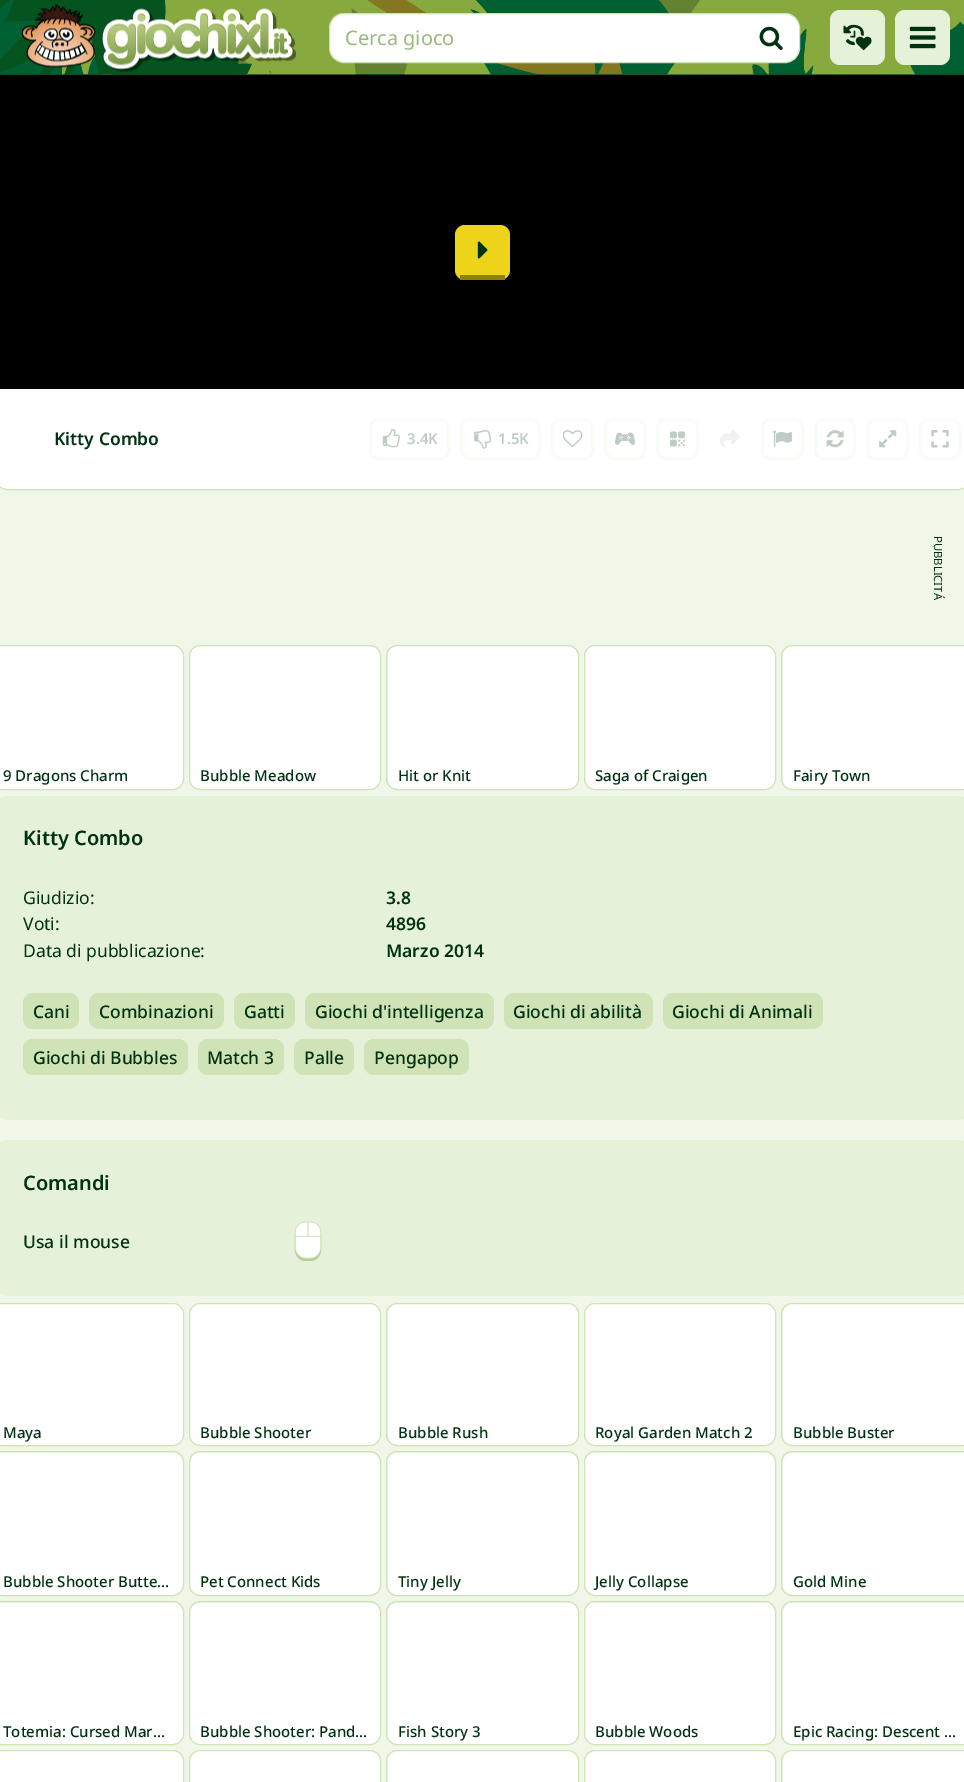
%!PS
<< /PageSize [964 1782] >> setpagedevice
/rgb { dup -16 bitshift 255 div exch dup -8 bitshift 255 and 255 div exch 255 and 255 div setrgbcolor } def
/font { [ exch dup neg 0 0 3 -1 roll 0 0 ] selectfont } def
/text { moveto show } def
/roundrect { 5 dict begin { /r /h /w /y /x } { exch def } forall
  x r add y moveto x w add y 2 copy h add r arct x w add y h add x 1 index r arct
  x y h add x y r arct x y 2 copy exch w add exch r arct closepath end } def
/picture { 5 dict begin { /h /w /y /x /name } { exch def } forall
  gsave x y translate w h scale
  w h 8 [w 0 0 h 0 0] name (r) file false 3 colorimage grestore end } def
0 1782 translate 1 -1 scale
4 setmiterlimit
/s1 { /NotoSans-Regular 20 font 16#9CB87A rgb } def
/s2 { /NotoSans-SemiBold 17.5 font 16#003212 rgb } def
/s3 { /NotoSans-SemiBold 15 font 16#BFCCC4 rgb } def
/s4 { /NotoSans-Medium 15 font 16#003212 rgb } def
/s5 { /NotoSans-SemiBold 20 font 16#003212 rgb } def
/s6 { /NotoSans-Regular 17.5 font 16#003212 rgb } def
/s7 { /NotoSans-Medium 17.5 font 16#003212 rgb } def
16#F0F7E9 rgb
0 0 964 1782 rectfill
16#FFFFFF rgb
-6.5 -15.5 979 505 14.5 roundrect gsave fill grestore
16#CFE3B7 rgb
stroke
16#003E1F rgb
0 74 964 1 rectfill
(pic1.raw) 0 0 964 75 picture
(pic2.raw) 21 3 275 69 picture
16#FFFFFF rgb
329.5 13.5 470 49 14.5 roundrect gsave fill grestore
16#CFE3B7 rgb
stroke
s1
(Cerca gioco) 345 45 text
(pic3.raw) 759 26 24 24 picture
16#E6F1DA rgb
830 10 55 55 10 roundrect fill
(pic4.raw) 843 24 29 27 picture
895 10 55 55 10 roundrect fill
(pic5.raw) 909 26 27 23 picture
16#000000 rgb
0 75 964 314 rectfill
16#EED419 rgb
455 225 55 55 10 roundrect fill
16#8F7F0F rgb
460 275 45 5 rectfill
(pic6.raw) 477 241 11 18 picture
s2
(Kitty Combo) 54 445 text
16#F9FCF6 rgb
3 setlinewidth
370.5 419.5 78 39 8.5 roundrect stroke
(pic7.raw) 382 429 18 19 picture
s3
(3.4K) 407 444 text
16#F9FCF6 rgb
461.5 419.5 78 39 8.5 roundrect stroke
(pic8.raw) 474 430 18 19 picture
s3
(1.5K) 498 444 text
16#F9FCF6 rgb
552.5 419.5 40 39 8.5 roundrect stroke
(pic9.raw) 563 430 20 18 picture
605.5 419.5 39 39 8.5 roundrect stroke
(pic10.raw) 615 432 20 13 picture
657.5 419.5 40 39 8.5 roundrect stroke
(pic11.raw) 670 431 15 16 picture
(pic12.raw) 720 429 20 19 picture
762.5 419.5 40 39 8.5 roundrect stroke
(pic13.raw) 773 430 19 18 picture
815.5 419.5 39 39 8.5 roundrect stroke
(pic14.raw) 826 430 18 18 picture
867.5 419.5 40 39 8.5 roundrect stroke
(pic15.raw) 879 430 18 18 picture
920.5 419.5 39 39 8.5 roundrect stroke
(pic16.raw) 931 430 18 18 picture
/NotoSans-Regular 11.25 font
16#003212 rgb
gsave 934 536 translate 90 rotate 0 0 moveto (PUBBLICITÁ) show grestore
16#FFFFFF rgb
-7 646 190 143 10 roundrect fill
16#CFE3B7 rgb
1 setlinewidth
-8.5 645.5 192 144 10.5 roundrect stroke
s4
(9 Dragons Charm) 3 781 text
16#FFFFFF rgb
189.5 645.5 191 144 10.5 roundrect gsave fill grestore
16#CFE3B7 rgb
stroke
s4
(Bubble Meadow) 200 781 text
16#FFFFFF rgb
388 646 190 143 10 roundrect fill
16#CFE3B7 rgb
386.5 645.5 192 144 10.5 roundrect stroke
s4
(Hit or Knit) 398 781 text
16#FFFFFF rgb
584.5 645.5 191 144 10.5 roundrect gsave fill grestore
16#CFE3B7 rgb
stroke
s4
(Saga of Craigen) 595 781 text
16#FFFFFF rgb
783 646 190 143 10 roundrect fill
16#CFE3B7 rgb
781.5 645.5 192 144 10.5 roundrect stroke
s4
(Fairy Town) 793 781 text
16#E6F1DA rgb
-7 796 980 324 15 roundrect fill
s5
(Kitty Combo) 23 845 text
s6
(Giudizio:) 23 904 text
s2
(3.8) 386 904 text
s6
(Voti:) 23 930 text
s2
(4896) 386 930 text
s6
(Data di pubblicazione:) 23 957 text
s2
(Marzo 2014) 386 957 text
16#CFE3B7 rgb
23 993 56 36 10 roundrect fill
s7
(Cani) 33 1018 text
16#CFE3B7 rgb
89 993 135 36 10 roundrect fill
s7
(Combinazioni) 99 1018 text
16#CFE3B7 rgb
234 993 61 36 10 roundrect fill
s7
(Gatti) 244 1018 text
16#CFE3B7 rgb
305 993 189 36 10 roundrect fill
s7
(Giochi d'intelligenza) 315 1018 text
16#CFE3B7 rgb
504 993 149 36 10 roundrect fill
s7
(Giochi di abilità) 513 1018 text
16#CFE3B7 rgb
663 993 160 36 10 roundrect fill
s7
(Giochi di Animali) 672 1018 text
16#CFE3B7 rgb
23 1039 165 36 10 roundrect fill
s7
(Giochi di Bubbles) 33 1064 text
16#CFE3B7 rgb
198 1039 86 36 10 roundrect fill
s7
(Match 3) 207 1064 text
16#CFE3B7 rgb
294 1039 60 36 10 roundrect fill
s7
(Palle) 304 1064 text
16#CFE3B7 rgb
364 1039 105 36 10 roundrect fill
s7
(Pengapop) 374 1064 text
16#E6F1DA rgb
-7 1140 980 156 15 roundrect fill
s5
(Comandi) 23 1190 text
s7
(Usa il mouse) 23 1248 text
(pic17.raw) 294 1221 28 40 picture
16#FFFFFF rgb
-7 1304 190 141 10 roundrect fill
16#CFE3B7 rgb
-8.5 1303.5 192 142 10.5 roundrect stroke
s4
(Maya) 3 1438 text
16#FFFFFF rgb
189.5 1303.5 191 142 10.5 roundrect gsave fill grestore
16#CFE3B7 rgb
stroke
s4
(Bubble Shooter) 200 1438 text
16#FFFFFF rgb
388 1304 190 141 10 roundrect fill
16#CFE3B7 rgb
386.5 1303.5 192 142 10.5 roundrect stroke
s4
(Bubble Rush) 398 1438 text
16#FFFFFF rgb
584.5 1303.5 191 142 10.5 roundrect gsave fill grestore
16#CFE3B7 rgb
stroke
s4
(Royal Garden Match 2) 595 1438 text
16#FFFFFF rgb
783 1304 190 141 10 roundrect fill
16#CFE3B7 rgb
781.5 1303.5 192 142 10.5 roundrect stroke
s4
(Bubble Buster) 793 1438 text
16#FFFFFF rgb
-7 1453 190 142 10 roundrect fill
16#CFE3B7 rgb
-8.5 1451.5 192 144 10.5 roundrect stroke
s4
(Bubble Shooter Butte…) 3 1587 text
16#FFFFFF rgb
190 1453 190 142 10 roundrect fill
16#CFE3B7 rgb
189.5 1451.5 191 144 10.5 roundrect stroke
s4
(Pet Connect Kids) 200 1587 text
16#FFFFFF rgb
388 1453 190 142 10 roundrect fill
16#CFE3B7 rgb
386.5 1451.5 192 144 10.5 roundrect stroke
s4
(Tiny Jelly) 398 1587 text
16#FFFFFF rgb
585 1453 190 142 10 roundrect fill
16#CFE3B7 rgb
584.5 1451.5 191 144 10.5 roundrect stroke
s4
(Jelly Collapse) 595 1587 text
16#FFFFFF rgb
783 1453 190 142 10 roundrect fill
16#CFE3B7 rgb
781.5 1451.5 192 144 10.5 roundrect stroke
s4
(Gold Mine) 793 1587 text
16#FFFFFF rgb
-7 1603 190 141 10 roundrect fill
16#CFE3B7 rgb
-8.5 1601.5 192 143 10.5 roundrect stroke
s4
(Totemia: Cursed Mar…) 3 1737 text
16#FFFFFF rgb
190 1603 190 141 10 roundrect fill
16#CFE3B7 rgb
189.5 1601.5 191 143 10.5 roundrect stroke
s4
(Bubble Shooter: Pand…) 200 1737 text
16#FFFFFF rgb
388 1603 190 141 10 roundrect fill
16#CFE3B7 rgb
386.5 1601.5 192 143 10.5 roundrect stroke
s4
(Fish Story 3) 398 1737 text
16#FFFFFF rgb
585 1603 190 141 10 roundrect fill
16#CFE3B7 rgb
584.5 1601.5 191 143 10.5 roundrect stroke
s4
(Bubble Woods) 595 1737 text
16#FFFFFF rgb
783 1603 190 141 10 roundrect fill
16#CFE3B7 rgb
781.5 1601.5 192 143 10.5 roundrect stroke
s4
(Epic Racing: Descent …) 793 1737 text
16#FFFFFF rgb
-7 1751 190 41 10 roundrect fill
16#CFE3B7 rgb
-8.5 1750.5 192 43 10.5 roundrect stroke
16#FFFFFF rgb
190 1751 190 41 10 roundrect fill
16#CFE3B7 rgb
189.5 1750.5 191 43 10.5 roundrect stroke
16#FFFFFF rgb
388 1751 190 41 10 roundrect fill
16#CFE3B7 rgb
386.5 1750.5 192 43 10.5 roundrect stroke
16#FFFFFF rgb
585 1751 190 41 10 roundrect fill
16#CFE3B7 rgb
584.5 1750.5 191 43 10.5 roundrect stroke
16#FFFFFF rgb
783 1751 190 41 10 roundrect fill
16#CFE3B7 rgb
781.5 1750.5 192 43 10.5 roundrect stroke
showpage
